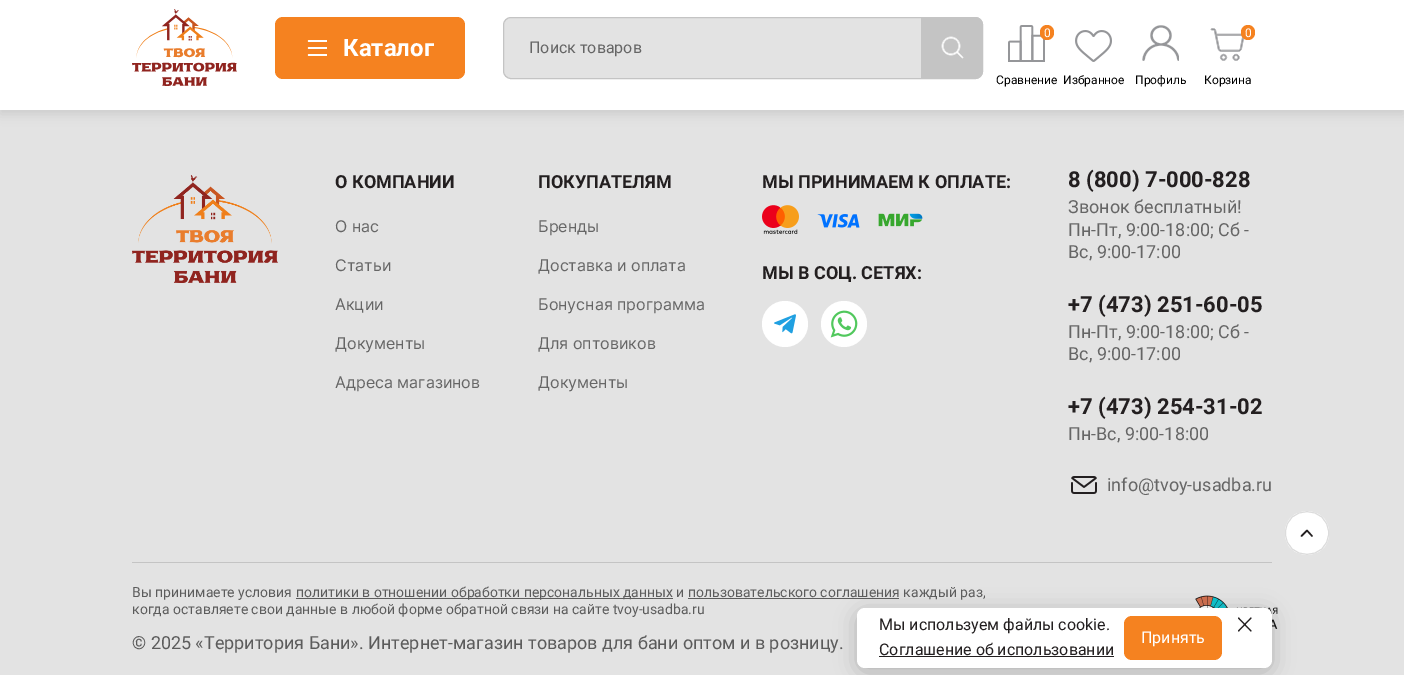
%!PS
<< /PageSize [1404 675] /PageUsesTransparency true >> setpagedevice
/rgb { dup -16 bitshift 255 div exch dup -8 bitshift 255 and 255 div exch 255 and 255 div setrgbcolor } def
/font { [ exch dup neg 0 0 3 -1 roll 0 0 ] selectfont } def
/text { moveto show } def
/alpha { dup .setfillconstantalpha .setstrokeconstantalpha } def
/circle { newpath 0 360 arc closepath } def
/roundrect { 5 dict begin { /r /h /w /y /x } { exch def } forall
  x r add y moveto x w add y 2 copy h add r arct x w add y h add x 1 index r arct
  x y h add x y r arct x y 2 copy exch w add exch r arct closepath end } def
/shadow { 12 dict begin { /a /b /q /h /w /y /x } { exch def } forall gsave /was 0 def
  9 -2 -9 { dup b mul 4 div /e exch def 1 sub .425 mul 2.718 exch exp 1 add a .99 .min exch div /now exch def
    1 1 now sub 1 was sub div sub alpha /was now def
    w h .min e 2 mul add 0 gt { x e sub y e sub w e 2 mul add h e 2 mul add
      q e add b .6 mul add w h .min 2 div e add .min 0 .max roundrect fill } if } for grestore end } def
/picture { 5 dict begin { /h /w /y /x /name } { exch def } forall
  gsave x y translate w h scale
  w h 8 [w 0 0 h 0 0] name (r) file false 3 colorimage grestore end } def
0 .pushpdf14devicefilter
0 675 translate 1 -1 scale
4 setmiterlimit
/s1 { /Roboto-Bold 24 font 16#FFFFFF rgb } def
/s2 { /Roboto-Regular 16 font 16#666666 rgb } def
/s3 { /Roboto-Regular 12 font 16#FFFFFF rgb } def
/s4 { /Roboto-Regular 12 font 16#000000 rgb } def
/s5 { /Roboto-Bold 18 font 16#231F20 rgb } def
/s6 { /Inter-Regular 16 font 16#666666 rgb } def
/s7 { /Roboto-Bold 22 font 16#231F20 rgb } def
/s8 { /Roboto-Regular 18 font 16#666666 rgb } def
/s9 { /Roboto-Regular 14 font 16#5C5C5C rgb } def
/s10 { /Roboto-Regular 18 font 16#5C5C5C rgb } def
/s11 { /Roboto-Regular 16 font 16#231F20 rgb } def
/s12 { /Roboto-Regular 16 font 16#FFFFFF rgb } def
16#E3E3E3 rgb
0 0 1404 675 rectfill
16#000000 rgb
0 4 1404 110 0 5.5 0.11 shadow
16#FFFFFF rgb
0 0 1404 110 rectfill
(pic1.raw) 132 9 105 77 picture
16#F58220 rgb
275 17 190 62 8 roundrect fill
(pic2.raw) 307 40 20 16 picture
s1
(Каталог) 343 56 text
16#E3E3E3 rgb
503.5 17.5 479 61 7.5 roundrect gsave fill grestore
16#C4C4C4 rgb
stroke
s2
(Поиск товаров) 529 53 text
16#C4C4C4 rgb
921 17 moveto 975 17 lineto 979.5 17 983 20.5 983 25 curveto 983 71 lineto 983 75.5 979.5 79 975 79 curveto 921 79 lineto closepath fill
(pic3.raw) 941 36 23 23 picture
(pic4.raw) 1008 25 37 37 picture
16#F58220 rgb
1040 25 14 15 7 roundrect fill
s3
(0) 1044 37 text
s4
(Сравнение) 996 84 text
(pic5.raw) 1210 28 35 33 picture
16#F58220 rgb
1241 25 14 15 7 roundrect fill
s3
(0) 1245 37 text
s4
(Корзина) 1204 84 text
(pic6.raw) 1075 30 37 32 picture
(Избранное) 1063 84 text
(pic7.raw) 1142 25 37 36 picture
(Профиль) 1135 84 text
(pic8.raw) 132 175 146 108 picture
s5
(О КОМПАНИИ) 335 188 text
s6
(О нас) 335 232 text
(Статьи) 335 271 text
(Акции) 335 310 text
(Документы) 335 349 text
(Адреса магазинов) 335 388 text
s5
(ПОКУПАТЕЛЯМ) 538 188 text
s6
(Бренды) 538 232 text
(Доставка и оплата) 538 271 text
(Бонусная программа) 538 310 text
(Для оптовиков) 538 349 text
(Документы) 538 388 text
s5
(МЫ ПРИНИМАЕМ К ОПЛАТЕ:) 762 188 text
(pic9.raw) 762 205 37 29 picture
(pic10.raw) 817 214 43 14 picture
(pic11.raw) 878 213 45 14 picture
(МЫ В СОЦ. СЕТЯХ:) 762 279 text
16#FFFFFF rgb
785 324 23 circle fill
(pic12.raw) 774 314 22 20 picture
844 324 23 circle fill
(pic13.raw) 830 310 28 28 picture
s7
(8 \(800\) 7-000-828) 1068 187 text
s8
(Звонок бесплатный!) 1068 213 text
(Пн-Пт, 9:00-18:00; Сб -) 1068 236 text
(Вс, 9:00-17:00) 1068 258 text
s7
(+7 \(473\) 251-60-05) 1068 312 text
s8
(Пн-Пт, 9:00-18:00; Сб -) 1068 338 text
(Вс, 9:00-17:00) 1068 360 text
s7
(+7 \(473\) 254-31-02) 1068 414 text
s8
(Пн-Вс, 9:00-18:00) 1068 440 text
(pic14.raw) 1071 476 26 18 picture
(info@tvoy-usadba.ru) 1107 491 text
16#C4C4C4 rgb
132 562 1140 1 rectfill
s9
(Вы принимаете условия) 132 597 text
296 598 377 1 rectfill
(политики в отношении обработки персональных данных и пользовательского соглашения каждый раз,) 296 597 text
688 598 211 1 rectfill
(когда оставляете свои данные в любой форме обратной связи на сайте tvoy-usadba.ru) 132 614 text
s10
(© 2025 «Территория Бани». Интернет-магазин товаров для бани оптом и в розницу.) 132 649 text
(pic15.raw) 1195 595 83 34 picture
16#FFFFFF rgb
1285 533 moveto 1285 504 1329 504 1329 533 curveto 1329 562 1285 562 1285 533 curveto closepath fill
16#231F20 rgb
1.5 setlinewidth
1 setlinecap
1 setlinejoin
1301.5 536 moveto 1307 530.5 lineto 1312 536 lineto stroke
16#DCDCDC rgb
1 setlinewidth
0 setlinecap
0 setlinejoin
1285.5 533 moveto 1285.5 504.5 1328.5 504.5 1328.5 533 curveto 1328.5 561.5 1285.5 561.5 1285.5 533 curveto closepath stroke
16#666666 rgb
857 612 415 60 8 11 0.41 shadow
16#FFFFFF rgb
857 608 415 60 8 roundrect fill
s11
(Мы используем файлы cookie.) 879 630 text
(Соглашение об использовании) 879 655 text
879 656 235 1 rectfill
16#F58220 rgb
1124 616 98 44 8 roundrect fill
s12
(Принять) 1141 643 text
16#231F20 rgb
1.1 setlinewidth
1 setlinecap
1238.5 618 moveto 1251 631 lineto 1251 618 moveto 1238.5 631 lineto stroke
.poppdf14devicefilter showpage
